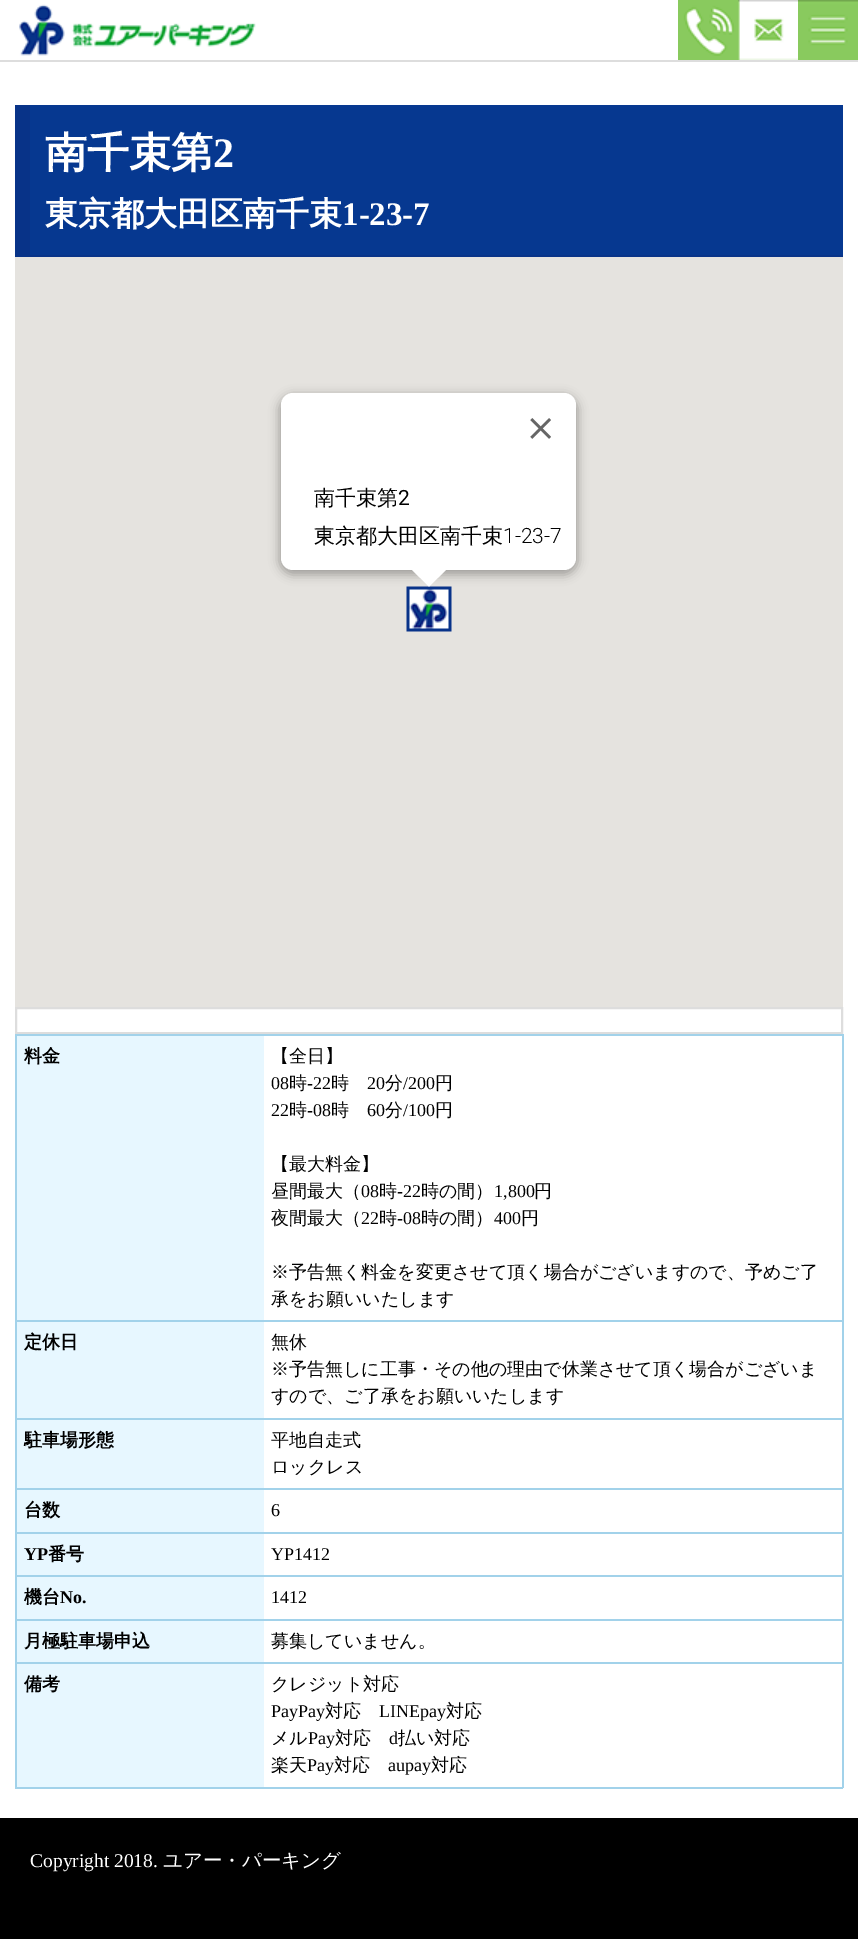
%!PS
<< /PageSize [858 1939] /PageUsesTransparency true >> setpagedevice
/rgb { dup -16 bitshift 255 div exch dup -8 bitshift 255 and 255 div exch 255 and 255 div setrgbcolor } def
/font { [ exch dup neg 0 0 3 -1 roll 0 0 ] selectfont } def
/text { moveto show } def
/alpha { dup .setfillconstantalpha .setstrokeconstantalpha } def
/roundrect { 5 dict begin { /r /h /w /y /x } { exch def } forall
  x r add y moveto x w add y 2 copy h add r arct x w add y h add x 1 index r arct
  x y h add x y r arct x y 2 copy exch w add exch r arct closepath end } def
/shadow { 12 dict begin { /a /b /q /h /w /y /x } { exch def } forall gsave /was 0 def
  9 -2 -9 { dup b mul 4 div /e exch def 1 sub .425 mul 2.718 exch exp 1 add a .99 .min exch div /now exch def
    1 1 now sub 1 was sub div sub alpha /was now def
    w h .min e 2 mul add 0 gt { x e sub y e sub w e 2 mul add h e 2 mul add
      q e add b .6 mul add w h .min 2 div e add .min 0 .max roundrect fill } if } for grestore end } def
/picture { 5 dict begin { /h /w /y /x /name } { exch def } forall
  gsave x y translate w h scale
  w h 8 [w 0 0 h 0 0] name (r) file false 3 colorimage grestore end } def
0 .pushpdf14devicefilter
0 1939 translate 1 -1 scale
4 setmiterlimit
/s1 { /WenQuanYiZenHei-Bold 42 font 16#FFFFFF rgb } def
/s2 { /LiberationSerif-Bold 42 font 16#FFFFFF rgb } def
/s3 { /WenQuanYiZenHei-Bold 33 font 16#FFFFFF rgb } def
/s4 { /LiberationSerif-Bold 33 font 16#FFFFFF rgb } def
/s5 { /WenQuanYiZenHei-Medium 21 font 16#000000 rgb } def
/s6 { /Roboto-Regular 21 font 16#000000 rgb } def
/s7 { /Roboto-Light 21 font 16#000000 rgb } def
/s8 { /WenQuanYiZenHei-Bold 18 font 16#000000 rgb } def
/s9 { /WenQuanYiZenHei-Medium 18 font 16#000000 rgb } def
/s10 { /LiberationSerif-Regular 18 font 16#000000 rgb } def
/s11 { /LiberationSerif-Bold 18 font 16#000000 rgb } def
/s12 { /LiberationSerif-Regular 19.5 font 16#FFFFFF rgb } def
/s13 { /WenQuanYiZenHei-Medium 19.5 font 16#FFFFFF rgb } def
16#FFFFFF rgb
0 0 858 1939 rectfill
16#DDDDDD rgb
0 60 858 2 rectfill
(pic1.raw) 19 4 237 52 picture
(pic2.raw) 678 0 60 60 picture
(pic3.raw) 738 0 60 60 picture
(pic4.raw) 798 0 60 60 picture
16#063890 rgb
30 105 813 150 rectfill
16#083388 rgb
30 255 813 2 rectfill
15 105 15 152 rectfill
s1
(南千束第) 45 167 text
s2
(2) 213 167 text
s3
(東京都大田区南千束) 45 225 text
s4
(1-23-7) 342 225 text
16#E5E3DF rgb
15 257 828 750 rectfill
(pic6.raw) 406 586 46 46 picture
16#000000 rgb
279 395 299 180 14 5 0.3 shadow
16#FFFFFF rgb
281 393 295 177 12 roundrect fill
(pic5.raw) 530 418 21 21 picture
s5
(南千束第) 314 505 text
s6
(2) 398 505 text
s5
(東京都大田区南千束) 314 543 text
s7
(1-23-7) 503 543 text
16#FFFFFF rgb
411 569 moveto 429 586.5 lineto 447 569 lineto closepath fill
16#DDDDDD rgb
2 setlinewidth
16 1008 826 25 rectstroke
16#A2D2EA rgb
15 1034 828 2 rectfill
842 1034 2 754 rectfill
15 1787 828 2 rectfill
15 1034 2 754 rectfill
16#E7F7FF rgb
17 1036 247 284 rectfill
s8
(料金) 24 1062 text
16#A2D2EA rgb
15 1320 828 2 rectfill
s9
(【全日】) 271 1062 text
s10
(08) 271 1089 text
s9
(時) 289 1089 text
s10
(-22) 307 1089 text
s9
(時) 331 1089 text
s10
(20) 367 1089 text
s9
(分) 385 1089 text
s10
(/200) 403 1089 text
s9
(円) 435 1089 text
s10
(22) 271 1116 text
s9
(時) 289 1116 text
s10
(-08) 307 1116 text
s9
(時) 331 1116 text
s10
(60) 367 1116 text
s9
(分) 385 1116 text
s10
(/100) 403 1116 text
s9
(円) 435 1116 text
(【最大料金】) 271 1170 text
(昼間最大（) 271 1197 text
s10
(08) 361 1197 text
s9
(時) 379 1197 text
s10
(-22) 397 1197 text
s9
(時の間）) 421 1197 text
s10
(1,800) 494 1197 text
s9
(円) 534 1197 text
(夜間最大（) 271 1224 text
s10
(22) 361 1224 text
s9
(時) 379 1224 text
s10
(-08) 397 1224 text
s9
(時の間）) 421 1224 text
s10
(400) 494 1224 text
s9
(円) 521 1224 text
(※予告無く料金を変更させて頂く場合がございますので、予めご了) 271 1278 text
(承をお願いいたします) 271 1305 text
16#E7F7FF rgb
17 1322 247 96 rectfill
s8
(定休日) 24 1348 text
16#A2D2EA rgb
15 1418 828 2 rectfill
s9
(無休) 271 1348 text
(※予告無しに工事・その他の理由で休業させて頂く場合がございま) 271 1375 text
(すので、ご了承をお願いいたします) 271 1402 text
16#E7F7FF rgb
17 1420 247 68 rectfill
s8
(駐車場形態) 24 1446 text
16#A2D2EA rgb
15 1488 828 2 rectfill
s9
(平地自走式) 271 1446 text
(ロックレス) 271 1473 text
16#E7F7FF rgb
17 1490 247 42 rectfill
s8
(台数) 24 1516 text
16#A2D2EA rgb
15 1532 828 2 rectfill
s10
(6) 271 1516 text
16#E7F7FF rgb
17 1534 247 41 rectfill
s11
(YP) 24 1560 text
s8
(番号) 48 1560 text
16#A2D2EA rgb
15 1575 828 2 rectfill
s10
(YP1412) 271 1560 text
16#E7F7FF rgb
17 1577 247 42 rectfill
s8
(機台) 24 1603 text
s11
(No.) 60 1603 text
16#A2D2EA rgb
15 1619 828 2 rectfill
s10
(1412) 271 1603 text
16#E7F7FF rgb
17 1621 247 41 rectfill
s8
(月極駐車場申込) 24 1647 text
16#A2D2EA rgb
15 1662 828 2 rectfill
s9
(募集していません。) 271 1647 text
16#E7F7FF rgb
17 1664 247 123 rectfill
s8
(備考) 24 1690 text
s9
(クレジット対応) 271 1690 text
s10
(PayPay) 271 1717 text
s9
(対応) 325 1717 text
s10
(LINEpay) 379 1717 text
s9
(対応) 446 1717 text
(メル) 271 1744 text
s10
(Pay) 308 1744 text
s9
(対応) 335 1744 text
s10
(d) 389 1744 text
s9
(払い対応) 398 1744 text
(楽天) 271 1771 text
s10
(Pay) 307 1771 text
s9
(対応) 334 1771 text
s10
(aupay) 388 1771 text
s9
(対応) 431 1771 text
0 1818 858 121 rectfill
s12
(Copyright 2018.) 30 1867 text
s13
(ユアー・パーキング) 163 1867 text
.poppdf14devicefilter showpage
